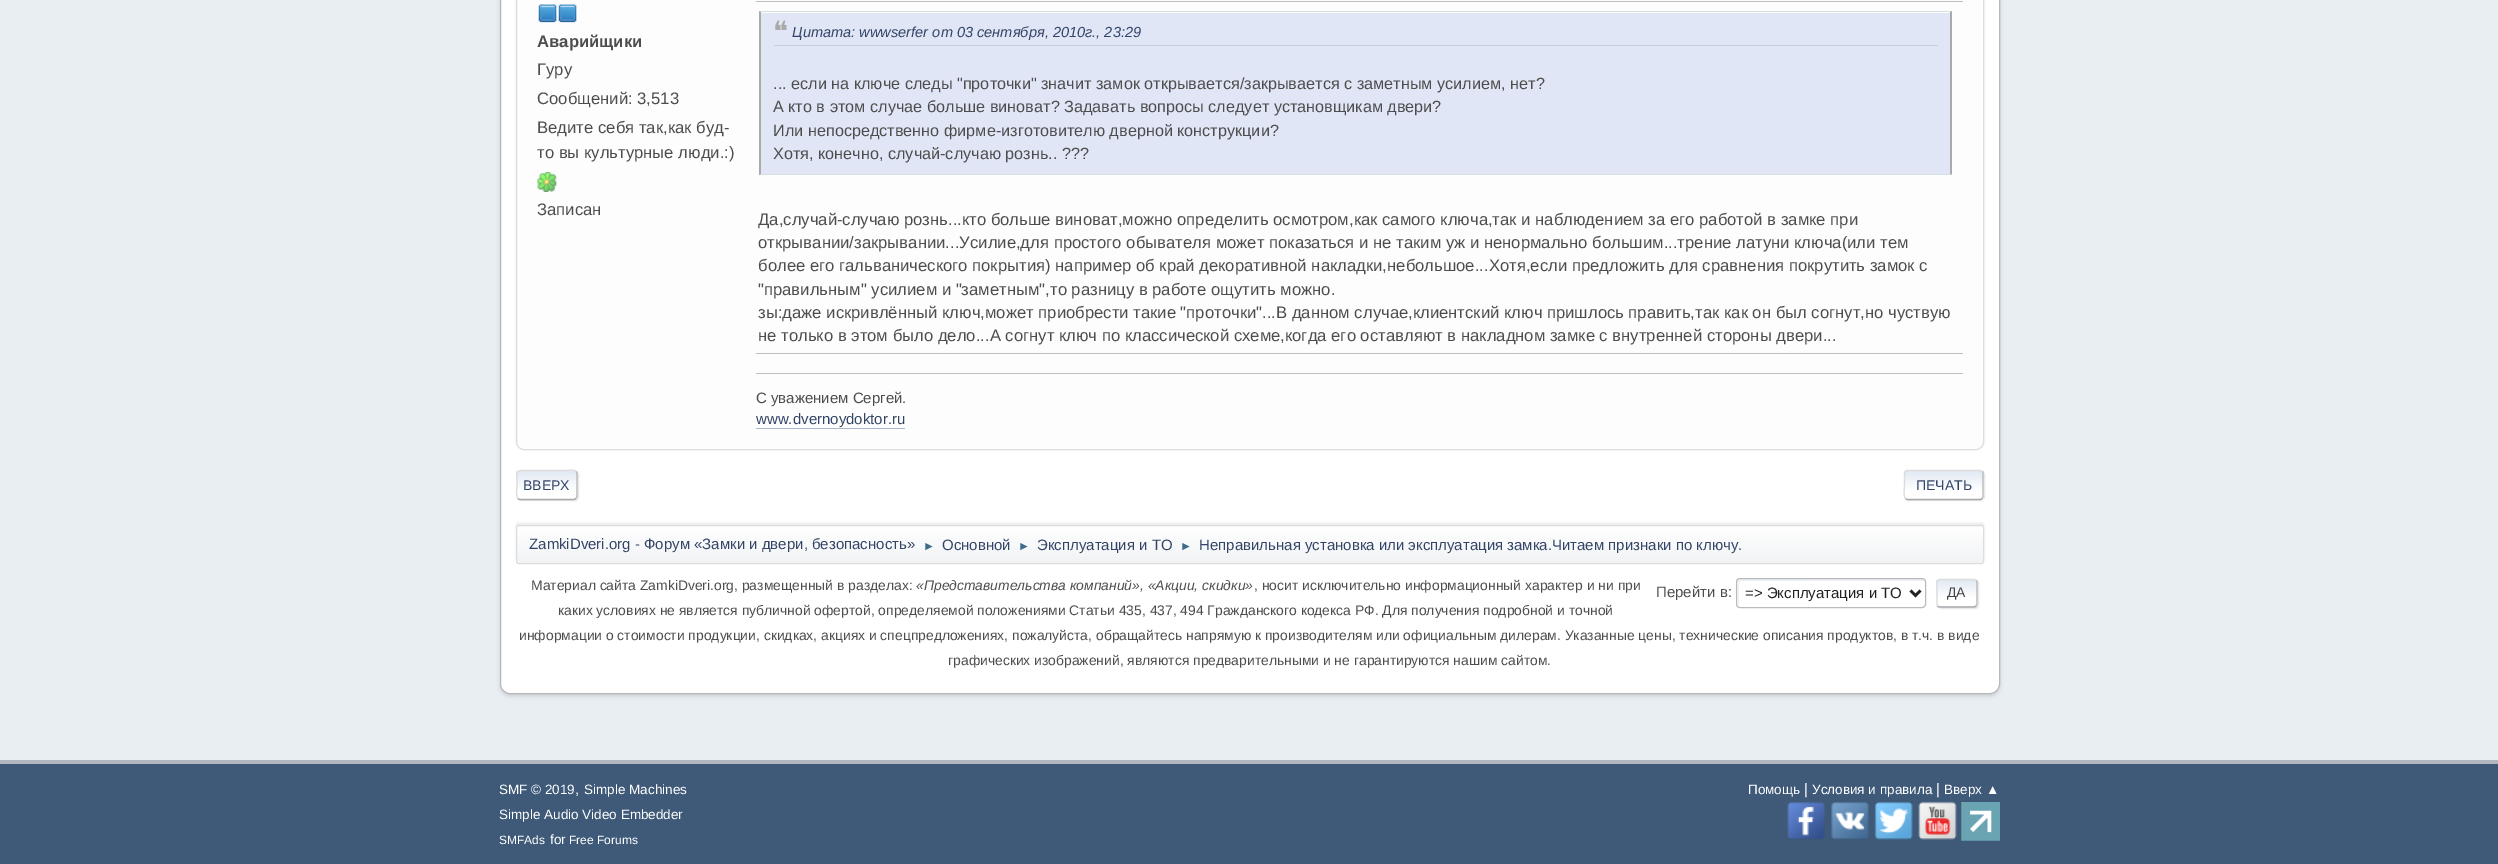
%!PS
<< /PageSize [2498 864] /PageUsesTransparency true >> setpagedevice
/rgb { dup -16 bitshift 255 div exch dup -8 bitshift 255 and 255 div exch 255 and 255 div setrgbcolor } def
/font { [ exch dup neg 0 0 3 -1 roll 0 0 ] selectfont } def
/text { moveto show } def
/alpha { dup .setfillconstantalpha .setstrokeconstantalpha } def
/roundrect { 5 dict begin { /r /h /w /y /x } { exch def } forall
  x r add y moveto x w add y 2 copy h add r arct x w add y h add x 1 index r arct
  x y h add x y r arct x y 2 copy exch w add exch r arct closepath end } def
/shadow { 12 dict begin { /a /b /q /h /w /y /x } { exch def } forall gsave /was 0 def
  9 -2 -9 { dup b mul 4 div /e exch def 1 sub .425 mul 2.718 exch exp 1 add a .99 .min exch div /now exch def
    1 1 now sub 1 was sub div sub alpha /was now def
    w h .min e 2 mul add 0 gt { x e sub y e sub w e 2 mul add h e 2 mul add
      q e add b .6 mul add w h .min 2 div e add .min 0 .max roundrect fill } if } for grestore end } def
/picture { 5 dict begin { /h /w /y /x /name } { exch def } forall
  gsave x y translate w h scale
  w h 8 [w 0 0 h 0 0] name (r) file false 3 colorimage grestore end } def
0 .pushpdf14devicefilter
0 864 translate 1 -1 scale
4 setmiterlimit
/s1 { /LiberationSans-Bold 16.67 font 16#4D4D4D rgb } def
/s2 { /LiberationSans-Regular 16.67 font 16#4D4D4D rgb } def
/s3 { /DejaVuSans-Regular 28 font 16#AAAAAA rgb } def
/s4 { /LiberationSans-Italic 14.6 font 16#334466 rgb } def
/s5 { /LiberationSans-Regular 16.25 font 16#4D4D4D rgb } def
/s6 { /LiberationSans-Regular 15 font 16#4D4D4D rgb } def
/s7 { /LiberationSans-Regular 15 font 16#334466 rgb } def
/s8 { /LiberationSans-Regular 14 font 16#334466 rgb } def
/s9 { /LiberationSans-Regular 12 font 16#3F6B8C rgb } def
/s10 { /LiberationSans-Regular 13.89 font 16#4D4D4D rgb } def
/s11 { /LiberationSans-Italic 13.89 font 16#4D4D4D rgb } def
/s12 { /LiberationSans-Regular 15 font 16#222222 rgb } def
/s13 { /LiberationSans-Regular 13.89 font 16#444444 rgb } def
/s14 { /LiberationSans-Regular 13.5 font 16#FFFFFF rgb } def
/s15 { /LiberationSans-Regular 15 font 16#FFFFFF rgb } def
/s16 { /LiberationSans-Regular 12 font 16#FFFFFF rgb } def
16#E9EEF2 rgb
0 0 2498 864 rectfill
16#000000 rgb
500 -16 1500 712 10 2 0.14 shadow
16#FFFFFF rgb
500.5 -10.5 1499 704 9.5 roundrect gsave fill grestore
16#B8B8B8 rgb
stroke
16#000000 rgb
516 -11 1468 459 8 1 0.1 shadow
16#FDFDFD rgb
516.5 -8.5 1467 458 7.5 roundrect gsave fill grestore
16#DDDDDD rgb
stroke
(pic1.raw) 538 4 19 19 picture
(pic1.raw) 558 4 19 19 picture
s1
(Аварийщики) 537 47 text
s2
(Гуру) 537 75 text
(Сообщений: 3,513) 537 104 text
(Ведите себя так,как буд-) 537 133 text
(то вы культурные люди.:\)) 537 158 text
(pic2.raw) 537 172 20 20 picture
(Записан) 537 215 text
16#BFBFBF rgb
756 1 1207 1 rectfill
16#E0E6F6 rgb
761 13 1189 161 rectfill
16#D6DFE2 rgb
759 11 moveto 1952 11 lineto 1950 12 lineto 761 12 lineto closepath fill
16#AAAAAA rgb
1952 11 moveto 1952 175 lineto 1950 174 lineto 1950 12 lineto closepath fill
16#D6DFE2 rgb
1952 175 moveto 759 175 lineto 761 174 lineto 1950 174 lineto closepath fill
16#AAAAAA rgb
759 175 moveto 759 11 lineto 761 12 lineto 761 174 lineto closepath fill
16#CACFDD rgb
774 45 1164 1 rectfill
s3
(❝) 773 41 text
s4
(Цитата: wwwserfer от 03 сентября, 2010г., 23:29) 792 37 text
s5
(... если на ключе следы "проточки" значит замок открывается/закрывается с заметным усилием, нет?) 773 89 text
(А кто в этом случае больше виноват? Задавать вопросы следует установщикам двери?) 773 112 text
(Или непосредственно фирме-изготовителю дверной конструкции?) 773 136 text
(Хотя, конечно, случай-случаю рознь.. ???) 773 159 text
s2
(Да,случай-случаю рознь...кто больше виноват,можно определить осмотром,как самого ключа,так и наблюдением за его работой в замке при) 758 225 text
(открывании/закрывании...Усилие,для простого обывателя может показаться и не таким уж и ненормально большим...трение латуни ключа\(или тем) 758 248 text
(более его гальванического покрытия\) например об край декоративной накладки,небольшое...Хотя,если предложить для сравнения покрутить замок с) 758 271 text
("правильным" усилием и "заметным",то разницу в работе ощутить можно.) 758 295 text
(зы:даже искривлённый ключ,может приобрести такие "проточки"...В данном случае,клиентский ключ пришлось править,так как он был согнут,но чуствую) 758 318 text
(не только в этом было дело...А согнут ключ по классической схеме,когда его оставляют в накладном замке с внутренней стороны двери...) 758 341 text
16#BFBFBF rgb
756 353 1207 1 rectfill
756 373 1207 1 rectfill
s6
(С уважением Сергей.) 756 403 text
s7
(www.dvernoydoktor.ru) 756 424 text
16#A8B6CF rgb
756 428 149 1 rectfill
16#000000 rgb
518 471 61 30 4 0.5 0.1 shadow
16#FFFFFF rgb
516 470 62 30 4 roundrect fill
gsave
516 470 62 30 4 roundrect clip newpath
gsave 516 471 moveto 578 471 lineto 578 499 lineto 516 499 lineto closepath clip newpath
<< /ShadingType 2 /ColorSpace /DeviceRGB /Coords [547 471 547 499] /Extend [true true] /Function << /FunctionType 3 /Domain [0 1] /Functions [<< /FunctionType 2 /Domain [0 1] /C0 [0.886 0.914 0.953] /C1 [1 1 1] /N 1 >> << /FunctionType 2 /Domain [0 1] /C0 [1 1 1] /C1 [1 1 1] /N 1 >>] /Bounds [0.7] /Encode [0 1 0 1] >> >> shfill grestore
gsave 516 499 moveto 578 499 lineto 578 500 lineto 516 500 lineto closepath clip newpath
<< /ShadingType 2 /ColorSpace /DeviceRGB /Coords [547 499 547 526] /Extend [true true] /Function << /FunctionType 3 /Domain [0 1] /Functions [<< /FunctionType 2 /Domain [0 1] /C0 [0.886 0.914 0.953] /C1 [1 1 1] /N 1 >> << /FunctionType 2 /Domain [0 1] /C0 [1 1 1] /C1 [1 1 1] /N 1 >>] /Bounds [0.7] /Encode [0 1 0 1] >> >> shfill grestore
grestore
16#BBBBBB rgb
1.2 setlinewidth
576 471.5 moveto 576.5 472 577 473 577 474 curveto 577 496 lineto 577 497 576.5 498 576 498.5 curveto stroke
16#AAAAAA rgb
576 498.5 moveto 574 499.5 lineto 519.5 499.5 lineto 518 498.5 lineto stroke
16#DDDDDD rgb
518 498.5 moveto 515.5 496.5 517 487.5 517 485 curveto 517 469.5 514 470.5 529 470.5 curveto 565 470.5 lineto 568.5 470.5 573.5 469 576 471.5 curveto stroke
s8
(ВВЕРХ) 523 490 text
16#000000 rgb
1905 471 80 30 4 0.5 0.1 shadow
16#FFFFFF rgb
1904 470 80 30 4 roundrect fill
gsave
1904 470 80 30 4 roundrect clip newpath
gsave 1904 471 moveto 1984 471 lineto 1984 499 lineto 1904 499 lineto closepath clip newpath
<< /ShadingType 2 /ColorSpace /DeviceRGB /Coords [1944 471 1944 499] /Extend [true true] /Function << /FunctionType 3 /Domain [0 1] /Functions [<< /FunctionType 2 /Domain [0 1] /C0 [0.886 0.914 0.953] /C1 [1 1 1] /N 1 >> << /FunctionType 2 /Domain [0 1] /C0 [1 1 1] /C1 [1 1 1] /N 1 >>] /Bounds [0.7] /Encode [0 1 0 1] >> >> shfill grestore
grestore
16#BBBBBB rgb
1982 471.5 moveto 1983 472 1983 473 1983 474 curveto 1983 496 lineto 1983 497 1983 498 1982 498.5 curveto stroke
16#AAAAAA rgb
1982 498.5 moveto 1980.5 499.5 lineto 1907 499.5 lineto 1905.5 498.5 lineto stroke
16#DDDDDD rgb
1905.5 498.5 moveto 1903 496.5 1904.5 487.5 1904.5 485 curveto 1904.5 468 1902 470.5 1919.5 470.5 curveto 1980 470.5 lineto 1982 471.5 lineto stroke
s8
(ПЕЧАТЬ) 1916 490 text
16#000000 rgb
516 523 1468 38 2.5 1 0.08 shadow
gsave
516 525 1468 39 2.5 roundrect clip newpath
gsave 516 526 moveto 1984 526 lineto 1984 563 lineto 516 563 lineto closepath clip newpath
<< /ShadingType 2 /ColorSpace /DeviceRGB /Coords [1250 526 1250 563] /Extend [true true] /Function << /FunctionType 3 /Domain [0 1] /Functions [<< /FunctionType 2 /Domain [0 1] /C0 [1 1 1] /C1 [0.945 0.953 0.961] /N 1 >> << /FunctionType 2 /Domain [0 1] /C0 [0.945 0.953 0.961] /C1 [0.945 0.953 0.961] /N 1 >>] /Bounds [0.95] /Encode [0 1 0 1] >> >> shfill grestore
grestore
16#DDDDDD rgb
1 setlinewidth
516.5 525.5 1467 38 2 roundrect stroke
s7
(ZamkiDveri.org - Форум «Замки и двери, безопасность») 529 549 text
s9
(►) 923 550 text
s7
(Основной) 942 550 text
s9
(►) 1018 550 text
s7
(Эксплуатация и ТО) 1037 550 text
s9
(►) 1180 550 text
s7
(Неправильная установка или эксплуатация замка.Читаем признаки по ключу.) 1199 550 text
s10
(Материал сайта ZamkiDveri.org, размещенный в разделах:) 531 590 text
s11
(«Представительства компаний», «Акции, скидки») 916 590 text
s10
(, носит исключительно информационный характер и ни при) 1254 590 text
(каких условиях не является публичной офертой, определяемой положениями Статьи 435, 437, 494 Гражданского кодекса РФ. Для получения подробной и точной) 558 615 text
(информации о стоимости продукции, скидках, акциях и спецпредложениях, пожалуйста, обращайтесь напрямую к производителям или официальным дилерам. Указанные цены, технические описания продуктов, в т.ч. в виде) 519 640 text
(графических изображений, являются предварительными и не гарантируются нашим сайтом.) 948 665 text
s6
(Перейти в:) 1656 597 text
16#ECF1F8 rgb
1741 581 moveto 1758 581 1924 580 1925 581 curveto 1925 580 1924 579 1922 579 curveto 1740 579 lineto 1739 579 1738 580 1738 582 curveto 1738 604 lineto 1738 604 1738 605 1739 606 curveto 1739 584 lineto 1739 582 1740 581 1741 581 curveto closepath fill
16#BBBBBB rgb
1736.5 578.5 189 29 3.5 roundrect stroke
16#222222 rgb
2.5 setlinewidth
1910.5 590.5 moveto 1915.5 595.5 lineto 1920.5 590.5 lineto stroke
(=> Эксплуатация и ТО) 1745 598 text
16#000000 rgb
1938 580 41 29 4 0.5 0.1 shadow
gsave
1936 579 42 29 4 roundrect clip newpath
gsave 1936 580 moveto 1978 580 lineto 1978 606 lineto 1936 606 lineto closepath clip newpath
<< /ShadingType 2 /ColorSpace /DeviceRGB /Coords [1957 580 1957 606] /Extend [true true] /Function << /FunctionType 3 /Domain [0 1] /Functions [<< /FunctionType 2 /Domain [0 1] /C0 [0.886 0.914 0.953] /C1 [1 1 1] /N 1 >> << /FunctionType 2 /Domain [0 1] /C0 [1 1 1] /C1 [1 1 1] /N 1 >>] /Bounds [0.7] /Encode [0 1 0 1] >> >> shfill grestore
gsave 1936 606 moveto 1978 606 lineto 1978 608 lineto 1936 608 lineto closepath clip newpath
<< /ShadingType 2 /ColorSpace /DeviceRGB /Coords [1957 606 1957 633] /Extend [true true] /Function << /FunctionType 3 /Domain [0 1] /Functions [<< /FunctionType 2 /Domain [0 1] /C0 [0.886 0.914 0.953] /C1 [1 1 1] /N 1 >> << /FunctionType 2 /Domain [0 1] /C0 [1 1 1] /C1 [1 1 1] /N 1 >>] /Bounds [0.7] /Encode [0 1 0 1] >> >> shfill grestore
grestore
16#BBBBBB rgb
1.2 setlinewidth
1976 580.5 moveto 1976.5 581 1977 581.5 1977 582.5 curveto 1977 604 lineto 1977 604.5 1976.5 605.5 1976 606 curveto stroke
16#AAAAAA rgb
1976 606 moveto 1975.5 606.5 1974.5 607 1974 607 curveto 1940 607 lineto 1939 607 1938.5 606.5 1938 606 curveto stroke
16#DDDDDD rgb
1938 606 moveto 1937 605.5 1937 604.5 1937 604 curveto 1937 582.5 lineto 1937 581.5 1937 581 1938 580.5 curveto 1938.5 579.5 1939 579.5 1940 579.5 curveto 1974 579.5 lineto 1974.5 579.5 1975.5 579.5 1976 580.5 curveto stroke
s13
(ДА) 1947 597 text
16#3E5A78 rgb
0 764 2498 100 rectfill
16#B2B6BD rgb
0 760 2498 4 rectfill
s14
(SMF © 2019) 499 794 text
s15
(,) 575 794 text
s14
(Simple Machines) 584 794 text
(Simple Audio Video Embedder) 499 819 text
s16
(SMFAds) 499 844 text
s14
(for) 550 844 text
s16
(Free Forums) 569 844 text
s14
(Помощь) 1748 794 text
s15
(|) 1804 794 text
s14
(Условия и правила) 1812 794 text
s15
(|) 1936 794 text
s14
(Вверх ▲) 1944 794 text
(pic3.raw) 1787 802 38 38 picture
(pic4.raw) 1831 802 38 38 picture
(pic5.raw) 1874 802 39 38 picture
(pic6.raw) 1918 801 39 39 picture
(pic7.raw) 1961 802 39 39 picture
.poppdf14devicefilter showpage
